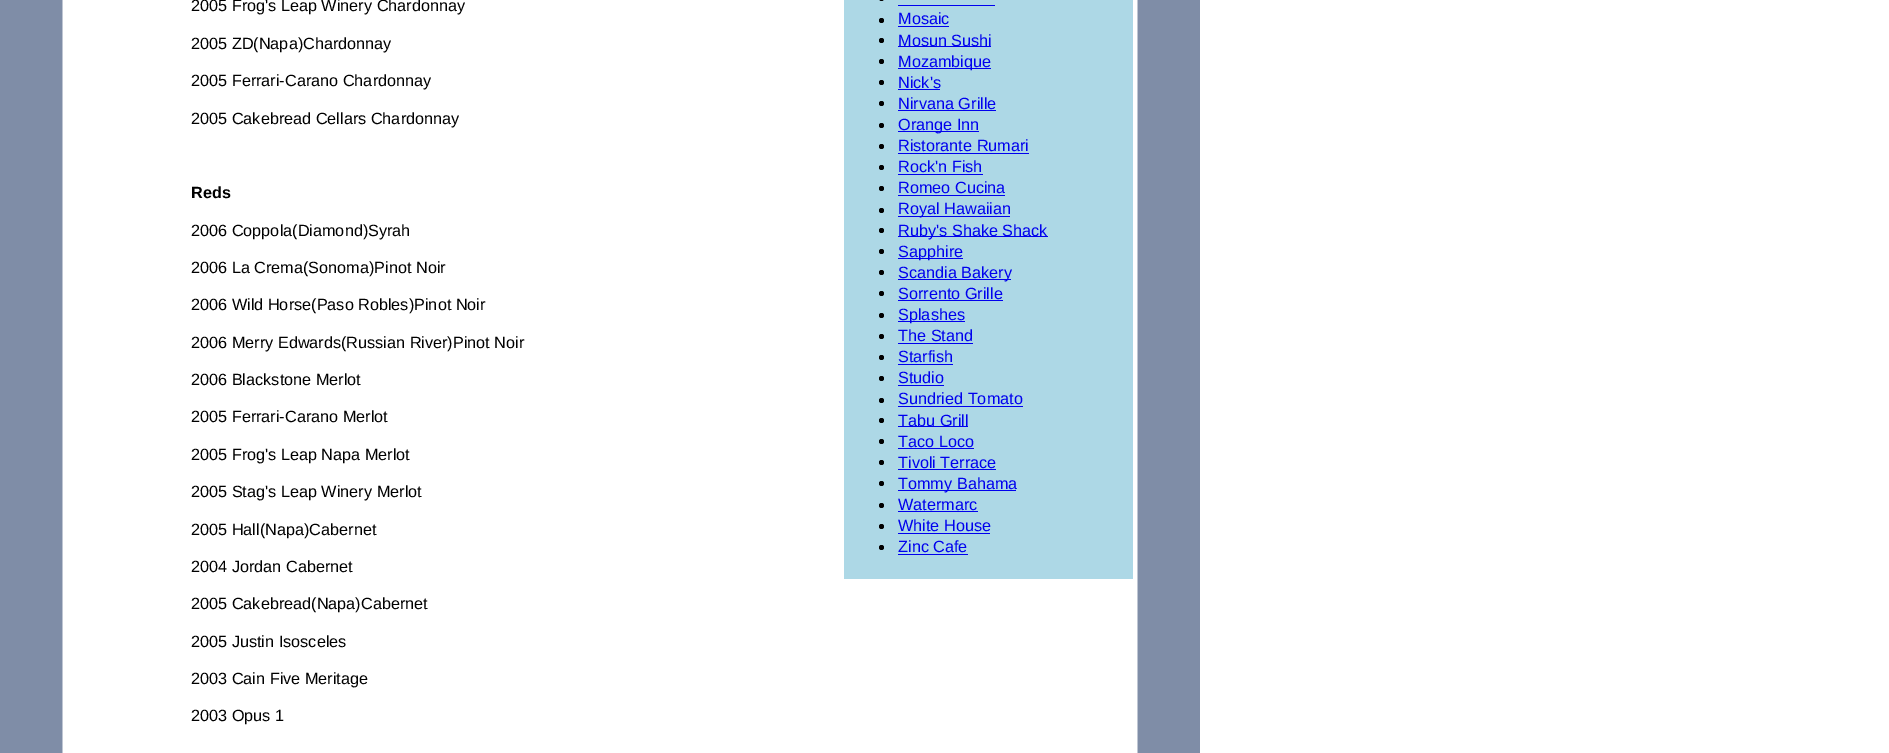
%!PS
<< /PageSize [1889 753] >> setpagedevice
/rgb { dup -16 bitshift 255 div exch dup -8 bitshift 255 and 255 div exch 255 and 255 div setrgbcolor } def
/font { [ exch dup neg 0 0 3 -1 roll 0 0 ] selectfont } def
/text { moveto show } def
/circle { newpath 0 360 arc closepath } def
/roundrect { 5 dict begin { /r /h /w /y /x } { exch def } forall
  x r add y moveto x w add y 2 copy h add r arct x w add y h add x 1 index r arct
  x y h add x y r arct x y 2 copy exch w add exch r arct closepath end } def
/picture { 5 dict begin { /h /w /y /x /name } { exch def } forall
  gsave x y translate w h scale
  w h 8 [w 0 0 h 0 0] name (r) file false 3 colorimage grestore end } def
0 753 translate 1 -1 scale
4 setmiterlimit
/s1 { /LiberationSans-Regular 16.25 font 16#000000 rgb } def
/s2 { /LiberationSans-Bold 16.25 font 16#000000 rgb } def
/s3 { /LiberationSans-Regular 16.25 font 16#0000EE rgb } def
16#FFFFFF rgb
0 0 1889 753 rectfill
(pic1.raw) 0 0 1200 753 picture
s1
(2005 Frog's Leap Winery Chardonnay) 191 11 text
(2005 ZD\(Napa\)Chardonnay) 191 49 text
(2005 Ferrari-Carano Chardonnay) 191 86 text
(2005 Cakebread Cellars Chardonnay) 191 124 text
s2
(Reds) 191 198 text
s1
(2006 Coppola\(Diamond\)Syrah) 191 236 text
(2006 La Crema\(Sonoma\)Pinot Noir) 191 273 text
(2006 Wild Horse\(Paso Robles\)Pinot Noir) 191 310 text
(2006 Merry Edwards\(Russian River\)Pinot Noir) 191 348 text
(2006 Blackstone Merlot) 191 385 text
(2005 Ferrari-Carano Merlot) 191 422 text
(2005 Frog's Leap Napa Merlot) 191 460 text
(2005 Stag's Leap Winery Merlot) 191 497 text
(2005 Hall\(Napa\)Cabernet) 191 535 text
(2004 Jordan Cabernet) 191 572 text
(2005 Cakebread\(Napa\)Cabernet) 191 609 text
(2005 Justin Isosceles) 191 647 text
(2003 Cain Five Meritage) 191 684 text
(2003 Opus 1) 191 721 text
16#ADD8E6 rgb
844 0 289 579 rectfill
16#000000 rgb
879 -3 5 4 2.5 roundrect fill
16#0000EE rgb
898 5 97 1 rectfill
16#000000 rgb
881.5 20.5 2.5 circle fill
s3
(Mosaic) 898 24 text
898 26 51 1 rectfill
16#000000 rgb
881.5 40.5 2.5 circle fill
16#0000EE rgb
898 46 93 1 rectfill
(Mosun Sushi) 898 46 text
16#000000 rgb
881.5 61.5 2.5 circle fill
16#0000EE rgb
898 68 93 1 rectfill
(Mozambique) 898 67 text
16#000000 rgb
881.5 82.5 2.5 circle fill
s3
(Nick's) 898 88 text
898 89 42 1 rectfill
16#000000 rgb
881.5 103.5 2.5 circle fill
s3
(Nirvana Grille) 898 109 text
898 110 98 1 rectfill
16#000000 rgb
881.5 125.5 2.5 circle fill
16#0000EE rgb
898 131 81 1 rectfill
(Orange Inn) 898 130 text
16#000000 rgb
881.5 146.5 2.5 circle fill
s3
(Ristorante Rumari) 898 151 text
898 153 131 1 rectfill
16#000000 rgb
881.5 167.5 2.5 circle fill
s3
(Rock'n Fish) 898 172 text
898 174 85 1 rectfill
16#000000 rgb
881.5 188.5 2.5 circle fill
s3
(Romeo Cucina) 898 193 text
898 195 107 1 rectfill
16#000000 rgb
881.5 210.5 2.5 circle fill
16#0000EE rgb
898 216 112 1 rectfill
(Royal Hawaiian) 898 214 text
16#000000 rgb
881.5 230.5 2.5 circle fill
16#0000EE rgb
898 236 150 1 rectfill
(Ruby's Shake Shack) 898 236 text
16#000000 rgb
881.5 251.5 2.5 circle fill
16#0000EE rgb
898 258 65 1 rectfill
(Sapphire) 898 257 text
16#000000 rgb
881.5 272.5 2.5 circle fill
16#0000EE rgb
898 279 113 1 rectfill
(Scandia Bakery) 898 278 text
16#000000 rgb
881.5 293.5 2.5 circle fill
s3
(Sorrento Grille) 898 299 text
898 300 105 1 rectfill
16#000000 rgb
881.5 315.5 2.5 circle fill
16#0000EE rgb
898 321 67 1 rectfill
(Splashes) 898 320 text
16#000000 rgb
881.5 336.5 2.5 circle fill
s3
(The Stand) 898 341 text
898 343 75 1 rectfill
16#000000 rgb
881.5 357.5 2.5 circle fill
s3
(Starfish) 898 362 text
898 364 55 1 rectfill
16#000000 rgb
881.5 378.5 2.5 circle fill
s3
(Studio) 898 383 text
898 385 46 1 rectfill
16#000000 rgb
881.5 400.5 2.5 circle fill
s3
(Sundried Tomato) 898 404 text
898 406 125 1 rectfill
16#000000 rgb
881.5 420.5 2.5 circle fill
16#0000EE rgb
898 426 70 1 rectfill
(Tabu Grill) 898 426 text
16#000000 rgb
881.5 441.5 2.5 circle fill
s3
(Taco Loco) 898 447 text
898 448 76 1 rectfill
16#000000 rgb
881.5 462.5 2.5 circle fill
s3
(Tivoli Terrace) 898 468 text
898 469 98 1 rectfill
16#000000 rgb
881.5 483.5 2.5 circle fill
16#0000EE rgb
898 490 118 1 rectfill
(Tommy Bahama) 898 489 text
16#000000 rgb
881.5 505.5 2.5 circle fill
s3
(Watermarc) 898 510 text
898 511 80 1 rectfill
16#000000 rgb
881.5 526.5 2.5 circle fill
s3
(White House) 898 531 text
898 533 92 1 rectfill
16#000000 rgb
881.5 547.5 2.5 circle fill
s3
(Zinc Cafe) 898 552 text
898 554 70 1 rectfill
showpage
